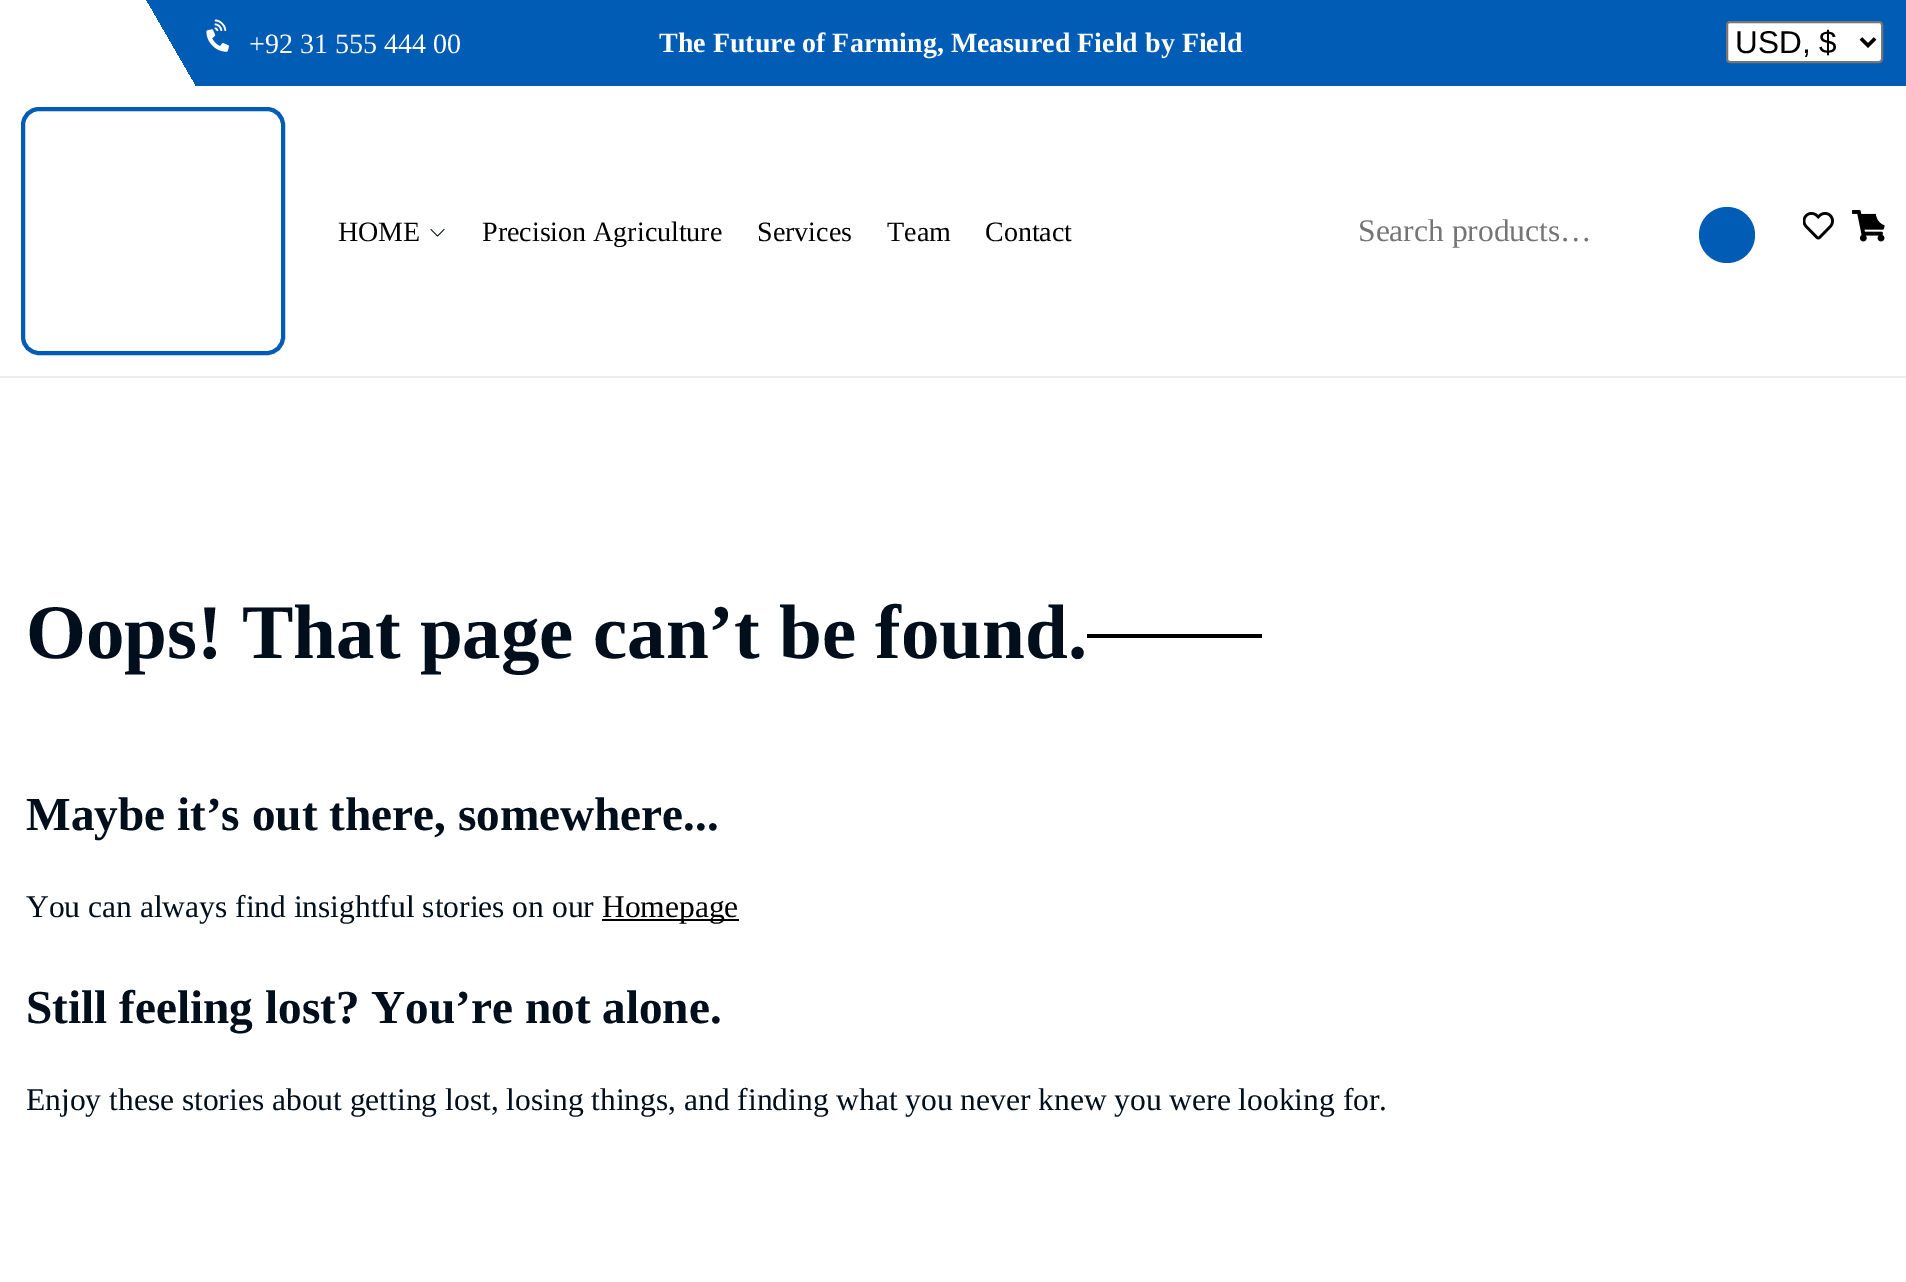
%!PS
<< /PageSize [1906 1282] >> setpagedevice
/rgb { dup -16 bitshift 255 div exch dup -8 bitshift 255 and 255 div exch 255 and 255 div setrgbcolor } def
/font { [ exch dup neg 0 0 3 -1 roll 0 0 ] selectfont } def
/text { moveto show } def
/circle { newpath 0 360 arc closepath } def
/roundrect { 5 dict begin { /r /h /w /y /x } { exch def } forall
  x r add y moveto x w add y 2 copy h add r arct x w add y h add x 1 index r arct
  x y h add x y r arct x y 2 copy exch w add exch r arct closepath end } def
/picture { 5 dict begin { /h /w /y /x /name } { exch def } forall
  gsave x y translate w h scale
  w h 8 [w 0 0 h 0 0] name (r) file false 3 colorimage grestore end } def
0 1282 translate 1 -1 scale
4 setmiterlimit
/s1 { /LiberationSerif-Regular 28 font 16#FFFFFF rgb } def
/s2 { /LiberationSerif-Bold 28 font 16#FFFFFF rgb } def
/s3 { /LiberationSans-Regular 31.5 font 16#000000 rgb } def
/s4 { /LiberationSerif-Regular 28 font 16#000000 rgb } def
/s5 { /LiberationSerif-Regular 31.5 font 16#757575 rgb } def
/s6 { /LiberationSerif-Bold 77 font 16#010F1C rgb } def
/s7 { /LiberationSerif-Bold 47.25 font 16#010F1C rgb } def
/s8 { /LiberationSerif-Regular 31.5 font 16#010F1C rgb } def
/s9 { /LiberationSerif-Regular 31.5 font 16#000000 rgb } def
16#FFFFFF rgb
0 0 1906 1282 rectfill
gsave 146 0 moveto 1906 0 lineto 1906 86 lineto 146 86 lineto closepath clip newpath
<< /ShadingType 2 /ColorSpace /DeviceRGB /Coords [220 467 1688 -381] /Extend [true true] /Function << /FunctionType 3 /Domain [0 1] /Functions [<< /FunctionType 2 /Domain [0 1] /C0 [1 1 1] /C1 [1 1 1] /N 1 >> << /FunctionType 2 /Domain [0 1] /C0 [0 0.361 0.71] /C1 [0 0.361 0.71] /N 1 >>] /Bounds [0.1] /Encode [0 1 0 1] >> >> shfill grestore
(pic1.raw) 206 19 23 33 picture
s1
(+92 31 555 444 00) 249 53 text
s2
(The Future of Farming, Measured Field by Field) 659 52 text
1727 22 155 40 3 roundrect gsave fill grestore
16#767676 rgb
2 setlinewidth
stroke
16#000000 rgb
3.5 setlinewidth
1861 38.5 moveto 1868 45.5 lineto 1875 38.5 lineto stroke
s3
(USD, $) 1735 53 text
16#005CB5 rgb
4 setlinewidth
23 109 260 244 16 roundrect stroke
s4
(HOME) 338 241 text
(pic2.raw) 430 229 15 8 picture
(Precision Agriculture) 482 241 text
(Services) 757 241 text
(Team) 887 241 text
(Contact) 985 241 text
s5
(Search products…) 1358 241 text
16#005CB5 rgb
1727 235 28 circle fill
(pic3.raw) 1803 212 31 28 picture
(pic4.raw) 1852 210 33 32 picture
16#FFFFFF rgb
1889 213 13 circle fill
16#EDEDED rgb
0 376 1906 2 rectfill
s6
(Oops! That page can’t be found.) 26 658 text
16#000000 rgb
1087 634 175 4 rectfill
s7
(Maybe it’s out there, somewhere...) 26 830 text
s8
(You can always find insightful stories on our) 26 917 text
16#000000 rgb
602 919 137 2 rectfill
(Homepage) 602 917 text
s7
(Still feeling lost? You’re not alone.) 26 1023 text
s8
(Enjoy these stories about getting lost, losing things, and finding what you never knew you were looking for.) 26 1110 text
showpage
